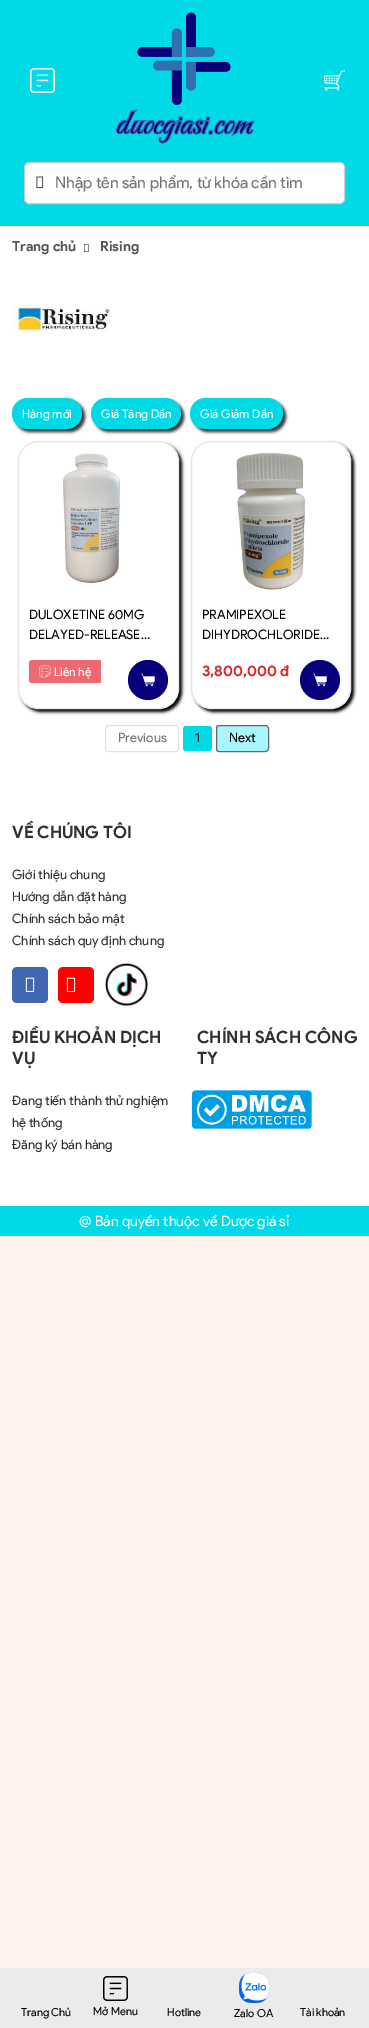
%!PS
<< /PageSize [369 2028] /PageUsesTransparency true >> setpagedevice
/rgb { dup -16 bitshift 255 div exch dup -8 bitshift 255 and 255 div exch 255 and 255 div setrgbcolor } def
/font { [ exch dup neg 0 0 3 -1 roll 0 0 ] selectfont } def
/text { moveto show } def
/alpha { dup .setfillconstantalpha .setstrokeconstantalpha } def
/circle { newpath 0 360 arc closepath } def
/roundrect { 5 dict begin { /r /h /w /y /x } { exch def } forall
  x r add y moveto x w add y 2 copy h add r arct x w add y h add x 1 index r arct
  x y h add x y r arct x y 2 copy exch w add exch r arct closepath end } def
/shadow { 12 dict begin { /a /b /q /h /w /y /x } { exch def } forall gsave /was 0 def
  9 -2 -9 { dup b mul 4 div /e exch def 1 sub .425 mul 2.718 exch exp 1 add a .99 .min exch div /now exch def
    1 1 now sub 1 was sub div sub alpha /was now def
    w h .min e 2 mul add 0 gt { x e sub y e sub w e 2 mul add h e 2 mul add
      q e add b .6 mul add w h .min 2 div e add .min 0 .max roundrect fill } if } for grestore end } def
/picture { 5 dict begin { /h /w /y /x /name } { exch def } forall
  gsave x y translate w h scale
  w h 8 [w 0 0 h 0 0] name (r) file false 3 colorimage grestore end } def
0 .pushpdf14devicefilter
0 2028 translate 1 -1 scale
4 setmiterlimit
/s1 { /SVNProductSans-Regular 16 font 16#757575 rgb } def
/s2 { /SVNProductSans-Bold 14 font 16#555555 rgb } def
/s3 { /SVNProductSans-Regular 12 font 16#FFFFFF rgb } def
/s4 { /SVNProductSans-Regular 13 font 16#000000 rgb } def
/s5 { /SVNProductSans-Bold 15 font 16#D82A29 rgb } def
/s6 { /SVNProductSans-Regular 13 font 16#6C757D rgb } def
/s7 { /SVNProductSans-Regular 13 font 16#303030 rgb } def
/s8 { /SVNProductSans-Bold 17 font 16#303030 rgb } def
/s9 { /SVNProductSans-Regular 14.4 font 16#FFFFFF rgb } def
/s10 { /SVNProductSans-Regular 11 font 16#000000 rgb } def
16#FEF3EC rgb
0 0 369 2028 rectfill
16#00DAE7 rgb
0 0 369 226 rectfill
(pic1.raw) 30 68 25 25 picture
(pic2.raw) 115 12 140 132 picture
(pic3.raw) 323 70 22 21 picture
16#FFFFFF rgb
24.5 162.5 320 41 4.5 roundrect gsave fill grestore
16#CCCCCC rgb
stroke
(pic4.raw) 36 176 8 12 picture
s1
(Nhập tên sản phẩm, từ khóa cần tìm) 55 188 text
16#FFFFFF rgb
0 226 369 980 rectfill
s2
(Trang chủ) 12 251 text
(pic5.raw) 84 244 5 8 picture
(Rising) 100 251 text
(pic6.raw) 12 304 99 30 picture
16#303030 rgb
15 401 70 31 15.5 1.5 1 shadow
16#00DAE7 rgb
12 398 70 31 15.5 roundrect fill
s3
(Hàng mới) 22 418 text
16#303030 rgb
94 401 90 31 15.5 1.5 1 shadow
16#00DAE7 rgb
91 398 90 31 15.5 roundrect fill
s3
(Giá Tăng Dần) 101 418 text
16#303030 rgb
193 401 93 31 15.5 1.5 1 shadow
16#00DAE7 rgb
190 398 93 31 15.5 roundrect fill
s3
(Giá Giảm Dần) 200 418 text
16#000000 rgb
21 444 161 268 20 1.5 1 shadow
16#FFFFFF rgb
18.5 441.5 160 267 19.5 roundrect gsave fill grestore
16#E5E5E5 rgb
stroke
(pic7.raw) 62 453 58 131 picture
s4
(DULOXETINE 60MG) 29 619 text
(DELAYED-RELEASE…) 29 639 text
16#EF6A70 rgb
32 660 moveto 51 660 lineto 51 683 lineto 32 683 lineto 30.5 683 29 681.5 29 680 curveto 29 663 lineto 29 661.5 30.5 660 32 660 curveto closepath fill
(pic8.raw) 39 665 12 13 picture
gsave
29 660 139 23 rectclip
51 659 moveto 98 659 lineto 99.5 659 101 660.5 101 662 curveto 101 681 lineto 101 682.5 99.5 684 98 684 curveto 51 684 lineto closepath fill
grestore
s3
(Liên hệ) 54 676 text
16#08007A rgb
148 680 20 circle fill
(pic9.raw) 141 673 14 14 picture
16#000000 rgb
194 444 160 268 20 1.5 1 shadow
16#FFFFFF rgb
191.5 441.5 159 267 19.5 roundrect gsave fill grestore
16#E5E5E5 rgb
stroke
(pic10.raw) 235 452 71 138 picture
s4
(PRAMIPEXOLE) 202 619 text
(DIHYDROCHLORIDE…) 202 639 text
s5
(3,800,000 đ) 202 676 text
16#08007A rgb
320 680 20 circle fill
(pic9.raw) 313 673 14 14 picture
16#DEE2E6 rgb
109 725.5 moveto 176 725.5 lineto 177.5 725.5 178.5 726.5 178.5 728 curveto 178.5 749 lineto 178.5 750.5 177.5 751.5 176 751.5 curveto 109 751.5 lineto 107 751.5 105.5 750 105.5 748 curveto 105.5 729 lineto 105.5 727 107 725.5 109 725.5 curveto closepath stroke
s6
(Previous) 118 742 text
16#00DAE7 rgb
183 726 29 25 3 roundrect fill
s7
(1) 195 742 text
16#AAF6FD rgb
219 725.5 moveto 265 725.5 lineto 267 725.5 268.5 727 268.5 729 curveto 268.5 748 lineto 268.5 750 267 751.5 265 751.5 curveto 219 751.5 lineto 217.5 751.5 216.5 750.5 216.5 749 curveto 216.5 728 lineto 216.5 726.5 217.5 725.5 219 725.5 curveto closepath gsave fill grestore
16#666666 rgb
stroke
s4
(Next) 229 742 text
s8
(VỀ CHÚNG TÔI) 12 838 text
s7
(Giới thiệu chung) 12 879 text
(Hướng dẫn đặt hàng) 12 901 text
(Chính sách bảo mật) 12 923 text
(Chính sách quy định chung) 12 945 text
16#4267B2 rgb
12 967 36 36 5 roundrect fill
(pic11.raw) 25 977 10 15 picture
16#FF0000 rgb
58 967 36 36 5 roundrect fill
(pic12.raw) 66 977 10 15 picture
(pic13.raw) 105 963 43 43 picture
s8
(ĐIỀU KHOẢN DỊCH) 12 1043 text
(VỤ) 12 1064 text
s7
(Đang tiến thành thử nghiệm) 12 1105 text
(hệ thống) 12 1127 text
(Đăng ký bán hàng) 12 1149 text
s8
(CHÍNH SÁCH CÔNG) 197 1043 text
(TY) 197 1064 text
(pic14.raw) 191 1090 121 39 picture
16#00DAE7 rgb
0 1206 369 30 rectfill
s9
(@ Bản quyền thuộc về Dược giá sỉ) 79 1226 text
16#EBEBEB rgb
0 1968 369 60 rectfill
s10
(Trang Chủ) 21 2016 text
(pic15.raw) 103 1976 25 25 picture
(Mở Menu) 93 2015 text
(Hotline) 167 2016 text
(pic16.raw) 239 1973 30 30 picture
(Zalo OA) 234 2017 text
(Tài khoản) 300 2016 text
.poppdf14devicefilter showpage
